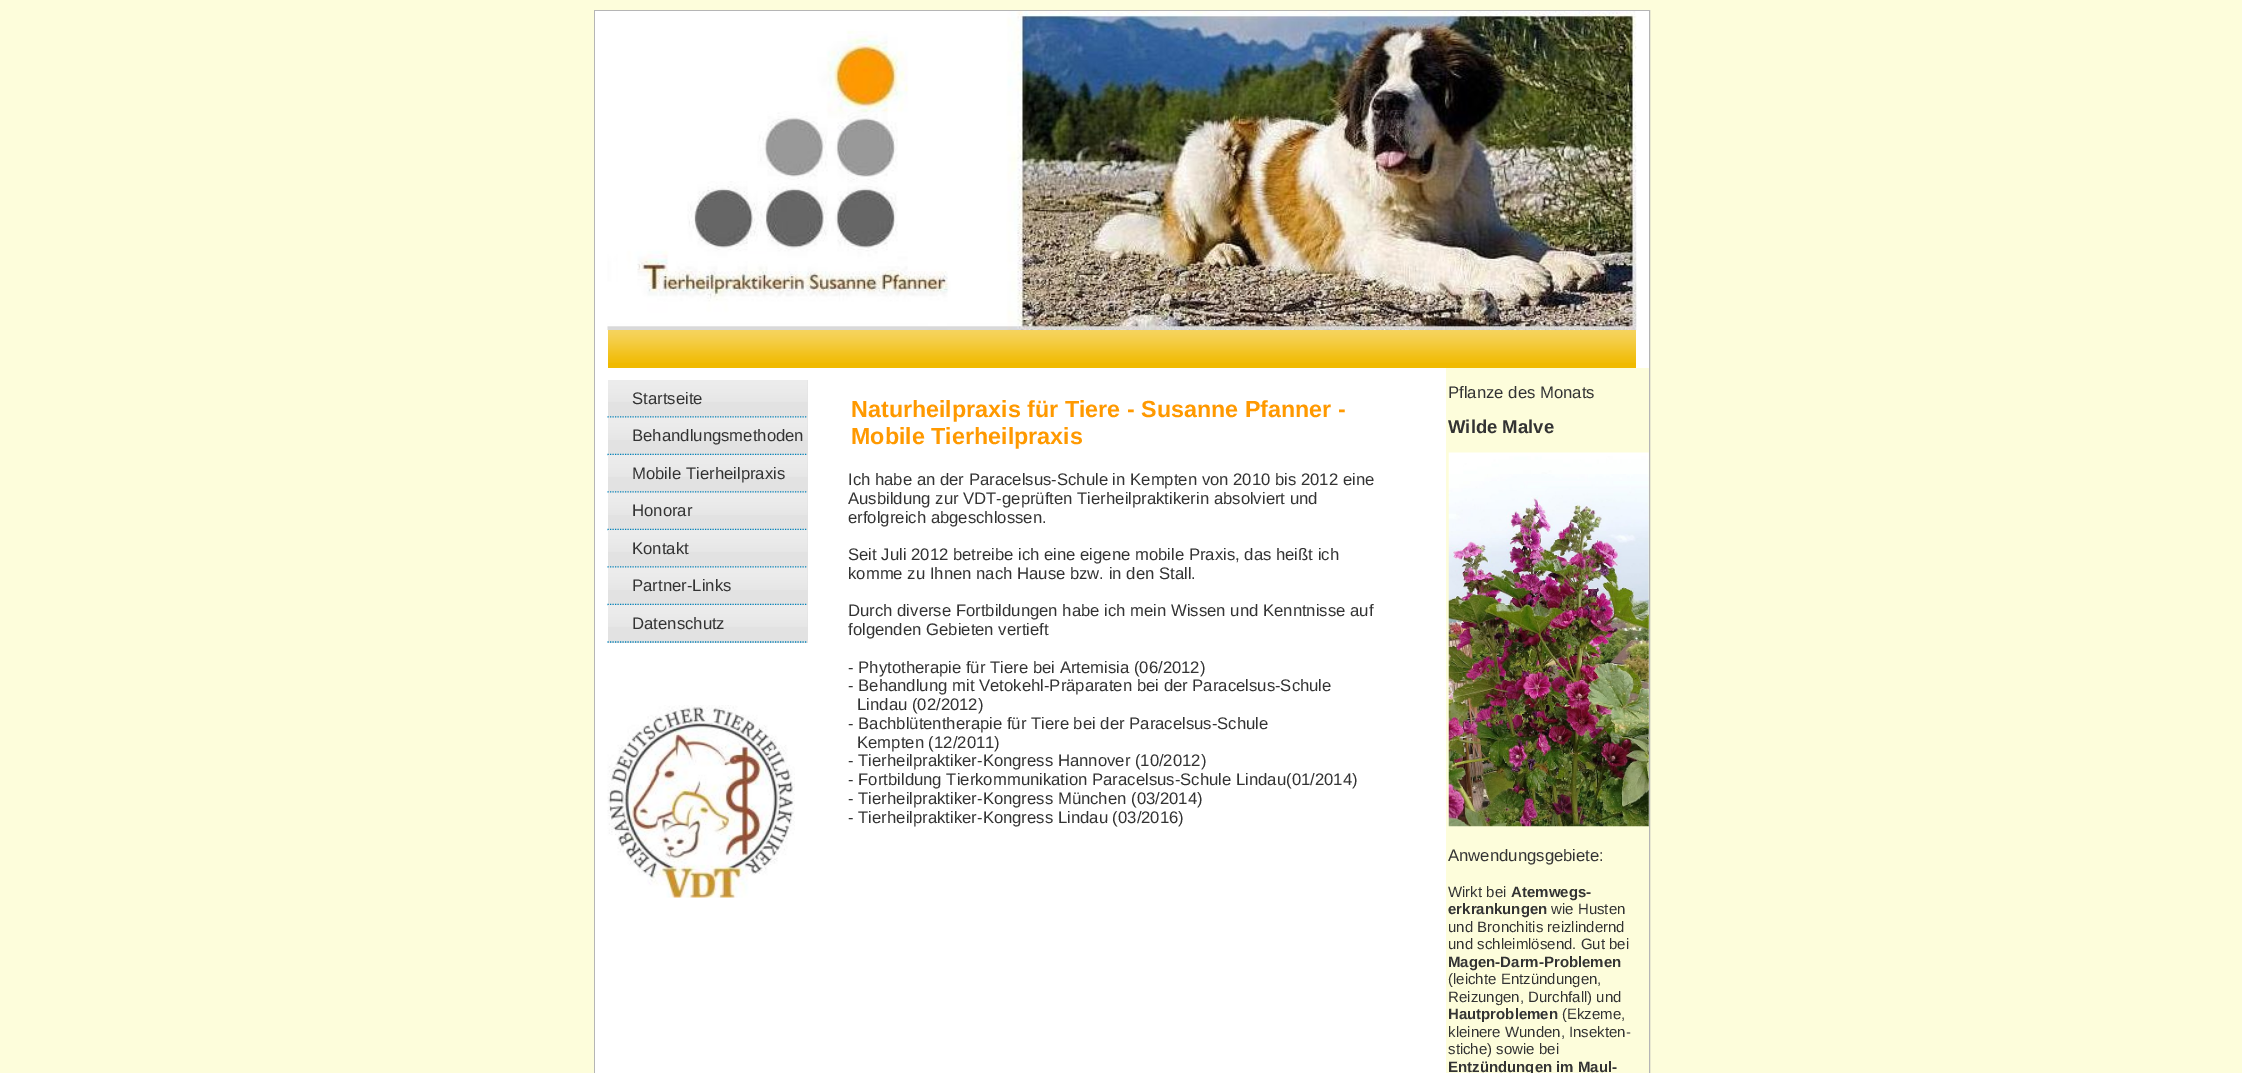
%!PS
<< /PageSize [2242 1073] >> setpagedevice
/rgb { dup -16 bitshift 255 div exch dup -8 bitshift 255 and 255 div exch 255 and 255 div setrgbcolor } def
/font { [ exch dup neg 0 0 3 -1 roll 0 0 ] selectfont } def
/text { moveto show } def
/picture { 5 dict begin { /h /w /y /x /name } { exch def } forall
  gsave x y translate w h scale
  w h 8 [w 0 0 h 0 0] name (r) file false 3 colorimage grestore end } def
0 1073 translate 1 -1 scale
4 setmiterlimit
/s1 { /LiberationSans-Regular 16.7 font 16#333333 rgb } def
/s2 { /LiberationSans-Bold 23.3 font 16#FF9900 rgb } def
/s3 { /LiberationSans-Bold 18.5 font 16#333333 rgb } def
/s4 { /LiberationSans-Regular 15 font 16#333333 rgb } def
/s5 { /LiberationSans-Bold 15 font 16#333333 rgb } def
16#FDFDDB rgb
0 0 2242 1073 rectfill
16#B5B5B5 rgb
594.5 10.5 1055 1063 rectstroke
16#FFFFFF rgb
595 11 1054 319 rectfill
(pic1.raw) 607 11 1030 319 picture
595 330 13 38 rectfill
16#F0BA00 rgb
608 330 1028 38 rectfill
(pic2.raw) 608 330 1028 33 picture
16#FFFFFF rgb
1636 330 13 38 rectfill
595 368 851 705 rectfill
16#E2E2E2 rgb
608 380 200 75 rectfill
(pic3.raw) 608 380 200 22 picture
16#0081B9 rgb
1.2 setlinewidth
[1.25 1.25] 0 setdash
607.5 417 moveto 807.5 417 lineto stroke
s1
(Startseite) 632 404 text
(pic4.raw) 607 417 201 23 picture
16#0081B9 rgb
607.5 454.5 moveto 807.5 454.5 lineto stroke
s1
(Behandlungsmethoden) 632 441 text
16#E2E2E2 rgb
608 455 200 75 rectfill
(pic5.raw) 608 455 200 22 picture
16#0081B9 rgb
607.5 492 moveto 807.5 492 lineto stroke
s1
(Mobile Tierheilpraxis) 632 479 text
(pic6.raw) 607 492 201 23 picture
16#0081B9 rgb
607.5 529.5 moveto 807.5 529.5 lineto stroke
s1
(Honorar) 632 516 text
16#E2E2E2 rgb
608 530 200 75 rectfill
(pic7.raw) 608 530 200 22 picture
16#0081B9 rgb
607.5 567 moveto 807.5 567 lineto stroke
s1
(Kontakt) 632 554 text
(pic8.raw) 607 567 201 23 picture
16#0081B9 rgb
607.5 604.5 moveto 807.5 604.5 lineto stroke
s1
(Partner-Links) 632 591 text
16#E2E2E2 rgb
608 605 200 38 rectfill
(pic9.raw) 608 605 200 22 picture
16#0081B9 rgb
607.5 642 moveto 807.5 642 lineto stroke
s1
(Datenschutz) 632 629 text
(pic10.raw) 607 705 188 193 picture
s2
(Naturheilpraxis für Tiere - Susanne Pfanner -) 851 417 text
(Mobile Tierheilpraxis) 851 444 text
s1
(Ich habe an der Paracelsus-Schule in Kempten von 2010 bis 2012 eine) 848 485 text
(Ausbildung zur VDT-geprüften Tierheilpraktikerin absolviert und) 848 504 text
(erfolgreich abgeschlossen.) 848 523 text
(Seit Juli 2012 betreibe ich eine eigene mobile Praxis, das heißt ich) 848 560 text
(komme zu Ihnen nach Hause bzw. in den Stall.) 848 579 text
(Durch diverse Fortbildungen habe ich mein Wissen und Kenntnisse auf) 848 616 text
(folgenden Gebieten vertieft) 848 635 text
(- Phytotherapie für Tiere bei Artemisia \(06/2012\)) 848 673 text
(- Behandlung mit Vetokehl-Präparaten bei der Paracelsus-Schule) 848 691 text
(Lindau \(02/2012\)) 857 710 text
(- Bachblütentherapie für Tiere bei der Paracelsus-Schule) 848 729 text
(Kempten \(12/2011\)) 857 748 text
(- Tierheilpraktiker-Kongress Hannover \(10/2012\)) 848 766 text
(- Fortbildung Tierkommunikation Paracelsus-Schule Lindau\(01/2014\)) 848 785 text
(- Tierheilpraktiker-Kongress München \(03/2014\)) 848 804 text
(- Tierheilpraktiker-Kongress Lindau \(03/2016\)) 848 823 text
(Pflanze des Monats) 1448 398 text
s3
(Wilde Malve) 1448 433 text
(pic11.raw) 1448 452 201 375 picture
s1
(Anwendungsgebiete:) 1448 861 text
s4
(Wirkt bei) 1448 897 text
s5
(Atemwegs-) 1511 897 text
(erkrankungen) 1448 914 text
s4
(wie Husten) 1551 914 text
(und Bronchitis reizlindernd) 1448 932 text
(und schleimlösend. Gut bei) 1448 949 text
s5
(Magen-Darm-Problemen) 1448 967 text
s4
(\(leichte Entzündungen,) 1448 984 text
(Reizungen, Durchfall\) und) 1448 1002 text
s5
(Hautproblemen) 1448 1019 text
s4
(\(Ekzeme,) 1562 1019 text
(kleinere Wunden, Insekten-) 1448 1037 text
(stiche\) sowie bei) 1448 1054 text
s5
(Entzündungen im Maul-) 1448 1072 text
showpage
